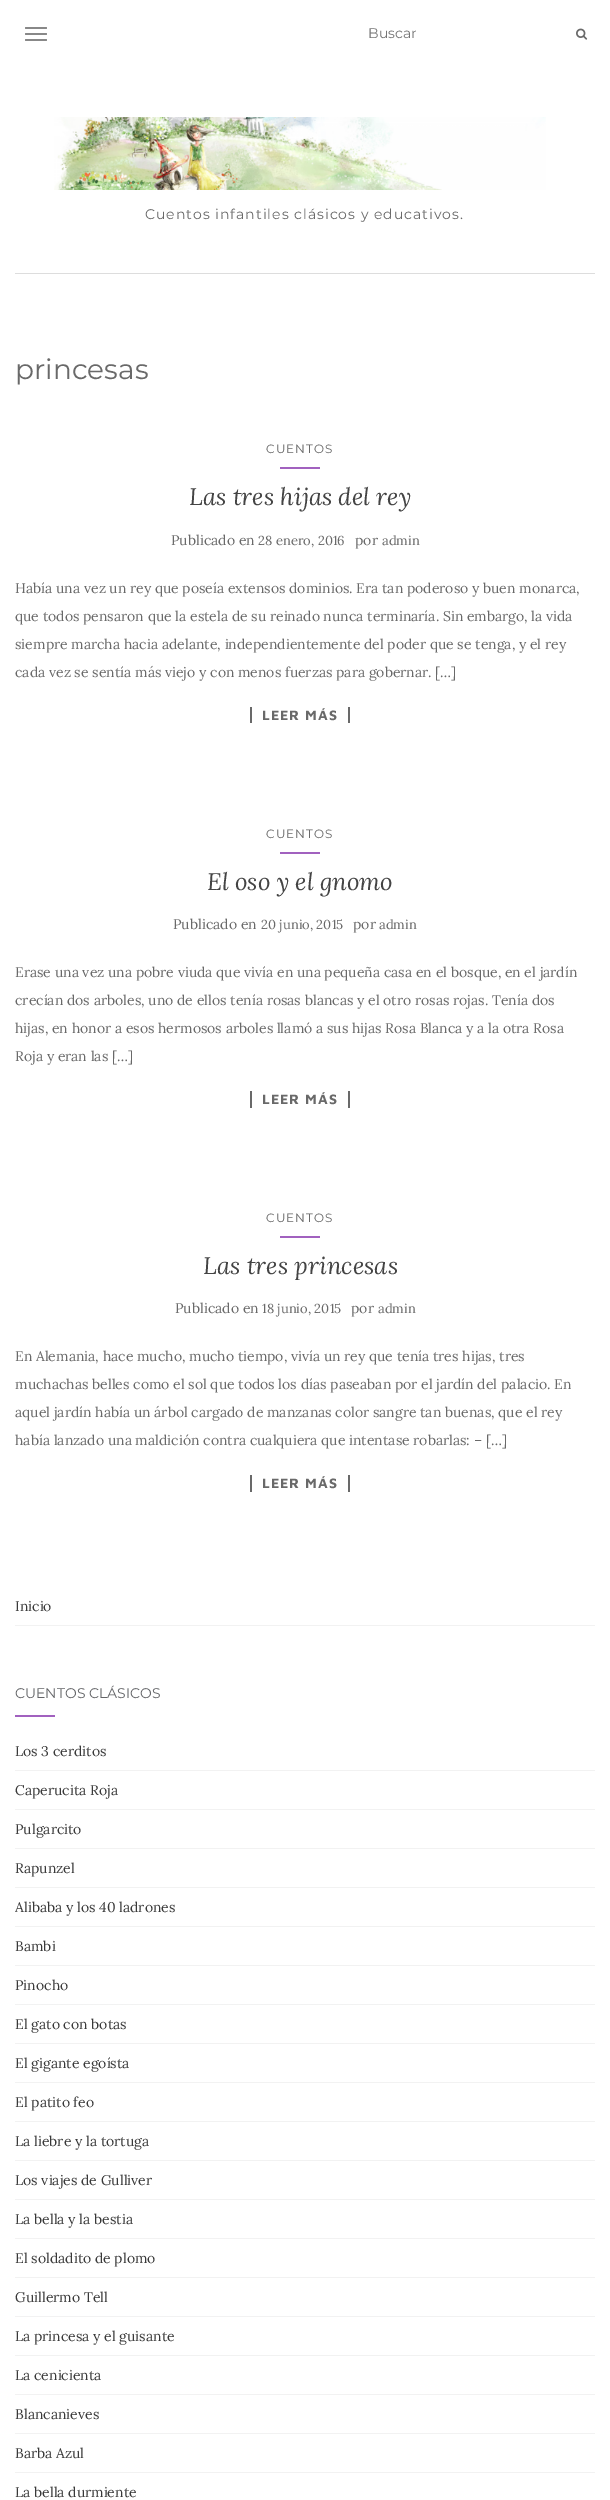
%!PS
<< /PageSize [610 2500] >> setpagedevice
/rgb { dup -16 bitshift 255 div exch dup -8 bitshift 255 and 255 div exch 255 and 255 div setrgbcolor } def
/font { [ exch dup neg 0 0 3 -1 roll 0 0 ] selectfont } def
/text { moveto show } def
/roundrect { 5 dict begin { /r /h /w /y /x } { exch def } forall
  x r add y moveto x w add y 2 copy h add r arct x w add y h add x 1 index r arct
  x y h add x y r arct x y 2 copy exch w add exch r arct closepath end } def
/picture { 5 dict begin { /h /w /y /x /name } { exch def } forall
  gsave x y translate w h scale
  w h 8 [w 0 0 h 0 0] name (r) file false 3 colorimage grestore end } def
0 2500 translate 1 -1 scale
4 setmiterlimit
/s1 { /Montserrat-Regular 14 font 16#757575 rgb } def
/s2 { /Montserrat-Regular 28 font 16#696969 rgb } def
/s3 { /Lora-Italic 24 font 16#444444 rgb } def
/s4 { /Lora-Regular 14 font 16#696969 rgb } def
/s5 { /Lora-Regular 13 font 16#696969 rgb } def
/s6 { /Lora-Regular 14 font 16#393939 rgb } def
/s7 { /Montserrat-Regular 14 font 16#636467 rgb } def
16#FFFFFF rgb
0 0 610 2500 rectfill
16#888888 rgb
25 27 22 2 1 roundrect fill
25 33 22 2 1 roundrect fill
25 39 22 2 1 roundrect fill
s1
(Buscar) 368 38 text
(pic1.raw) 576 28 12 12 picture
(pic2.raw) 54 117 492 73 picture
16#696969 rgb
145 219 moveto 1 0 (Cuentos infantiles clásicos y educativos.) ashow
16#DDDDDD rgb
15 273 580 1 rectfill
s2
(princesas) 15 379 text
/Montserrat-Regular 12 font
266 453 moveto 1 0 (CUENTOS) ashow
16#A161BF rgb
280 467 40 2 rectfill
s3
(Las tres hijas del rey) 189 505 text
s4
(Publicado en) 171 545 text
s5
(28 enero, 2016) 258 545 text
s4
(por) 355 545 text
s5
(admin) 382 545 text
s4
(Había una vez un rey que poseía extensos dominios. Era tan poderoso y buen monarca,) 15 593 text
(que todos pensaron que la estela de su reinado nunca terminaría. Sin embargo, la vida) 15 621 text
(siempre marcha hacia adelante, independientemente del poder que se tenga, y el rey) 15 649 text
(cada vez se sentía más viejo y con menos fuerzas para gobernar. […]) 15 677 text
348 707 2 16 rectfill
250 707 2 16 rectfill
/MavenPro-Bold 14 font
262 720 moveto 1 0 (LEER MÁS) ashow
/Montserrat-Regular 12 font
266 838 moveto 1 0 (CUENTOS) ashow
16#A161BF rgb
280 852 40 2 rectfill
s3
(El oso y el gnomo) 207 890 text
s4
(Publicado en) 173 929 text
s5
(20 junio, 2015) 261 929 text
s4
(por) 353 929 text
s5
(admin) 379 929 text
s4
(Erase una vez una pobre viuda que vivía en una pequeña casa en el bosque, en el jardín) 15 977 text
(crecían dos arboles, uno de ellos tenía rosas blancas y el otro rosas rojas. Tenía dos) 15 1005 text
(hijas, en honor a esos hermosos arboles llamó a sus hijas Rosa Blanca y a la otra Rosa) 15 1033 text
(Roja y eran las […]) 15 1061 text
348 1091 2 17 rectfill
250 1091 2 17 rectfill
/MavenPro-Bold 14 font
262 1104 moveto 1 0 (LEER MÁS) ashow
/Montserrat-Regular 12 font
266 1222 moveto 1 0 (CUENTOS) ashow
16#A161BF rgb
280 1236 40 2 rectfill
s3
(Las tres princesas) 203 1274 text
s4
(Publicado en) 175 1313 text
s5
(18 junio, 2015) 262 1313 text
s4
(por) 351 1313 text
s5
(admin) 378 1313 text
s4
(En Alemania, hace mucho, mucho tiempo, vivía un rey que tenía tres hijas, tres) 15 1361 text
(muchachas belles como el sol que todos los días paseaban por el jardín del palacio. En) 15 1389 text
(aquel jardín había un árbol cargado de manzanas color sangre tan buenas, que el rey) 15 1417 text
(había lanzado una maldición contra cualquiera que intentase robarlas: – […]) 15 1445 text
348 1475 2 17 rectfill
250 1475 2 17 rectfill
/MavenPro-Bold 14 font
262 1488 moveto 1 0 (LEER MÁS) ashow
16#F2F2F2 rgb
15 1625 580 1 rectfill
s6
(Inicio) 15 1611 text
s7
(CUENTOS CLÁSICOS) 15 1698 text
16#A161BF rgb
15 1715 40 2 rectfill
16#F2F2F2 rgb
15 1770 580 1 rectfill
s6
(Los 3 cerditos) 15 1756 text
16#F2F2F2 rgb
15 1809 580 1 rectfill
s6
(Caperucita Roja) 15 1795 text
16#F2F2F2 rgb
15 1848 580 1 rectfill
s6
(Pulgarcito) 15 1834 text
16#F2F2F2 rgb
15 1887 580 1 rectfill
s6
(Rapunzel) 15 1873 text
16#F2F2F2 rgb
15 1926 580 1 rectfill
s6
(Alibaba y los 40 ladrones) 15 1912 text
16#F2F2F2 rgb
15 1965 580 1 rectfill
s6
(Bambi) 15 1951 text
16#F2F2F2 rgb
15 2004 580 1 rectfill
s6
(Pinocho) 15 1990 text
16#F2F2F2 rgb
15 2043 580 1 rectfill
s6
(El gato con botas) 15 2029 text
16#F2F2F2 rgb
15 2082 580 1 rectfill
s6
(El gigante egoísta) 15 2068 text
16#F2F2F2 rgb
15 2121 580 1 rectfill
s6
(El patito feo) 15 2107 text
16#F2F2F2 rgb
15 2160 580 1 rectfill
s6
(La liebre y la tortuga) 15 2146 text
16#F2F2F2 rgb
15 2199 580 1 rectfill
s6
(Los viajes de Gulliver) 15 2185 text
16#F2F2F2 rgb
15 2238 580 1 rectfill
s6
(La bella y la bestia) 15 2224 text
16#F2F2F2 rgb
15 2277 580 1 rectfill
s6
(El soldadito de plomo) 15 2263 text
16#F2F2F2 rgb
15 2316 580 1 rectfill
s6
(Guillermo Tell) 15 2302 text
16#F2F2F2 rgb
15 2355 580 1 rectfill
s6
(La princesa y el guisante) 15 2341 text
16#F2F2F2 rgb
15 2394 580 1 rectfill
s6
(La cenicienta) 15 2380 text
16#F2F2F2 rgb
15 2433 580 1 rectfill
s6
(Blancanieves) 15 2419 text
16#F2F2F2 rgb
15 2472 580 1 rectfill
s6
(Barba Azul) 15 2458 text
(La bella durmiente) 15 2497 text
showpage
